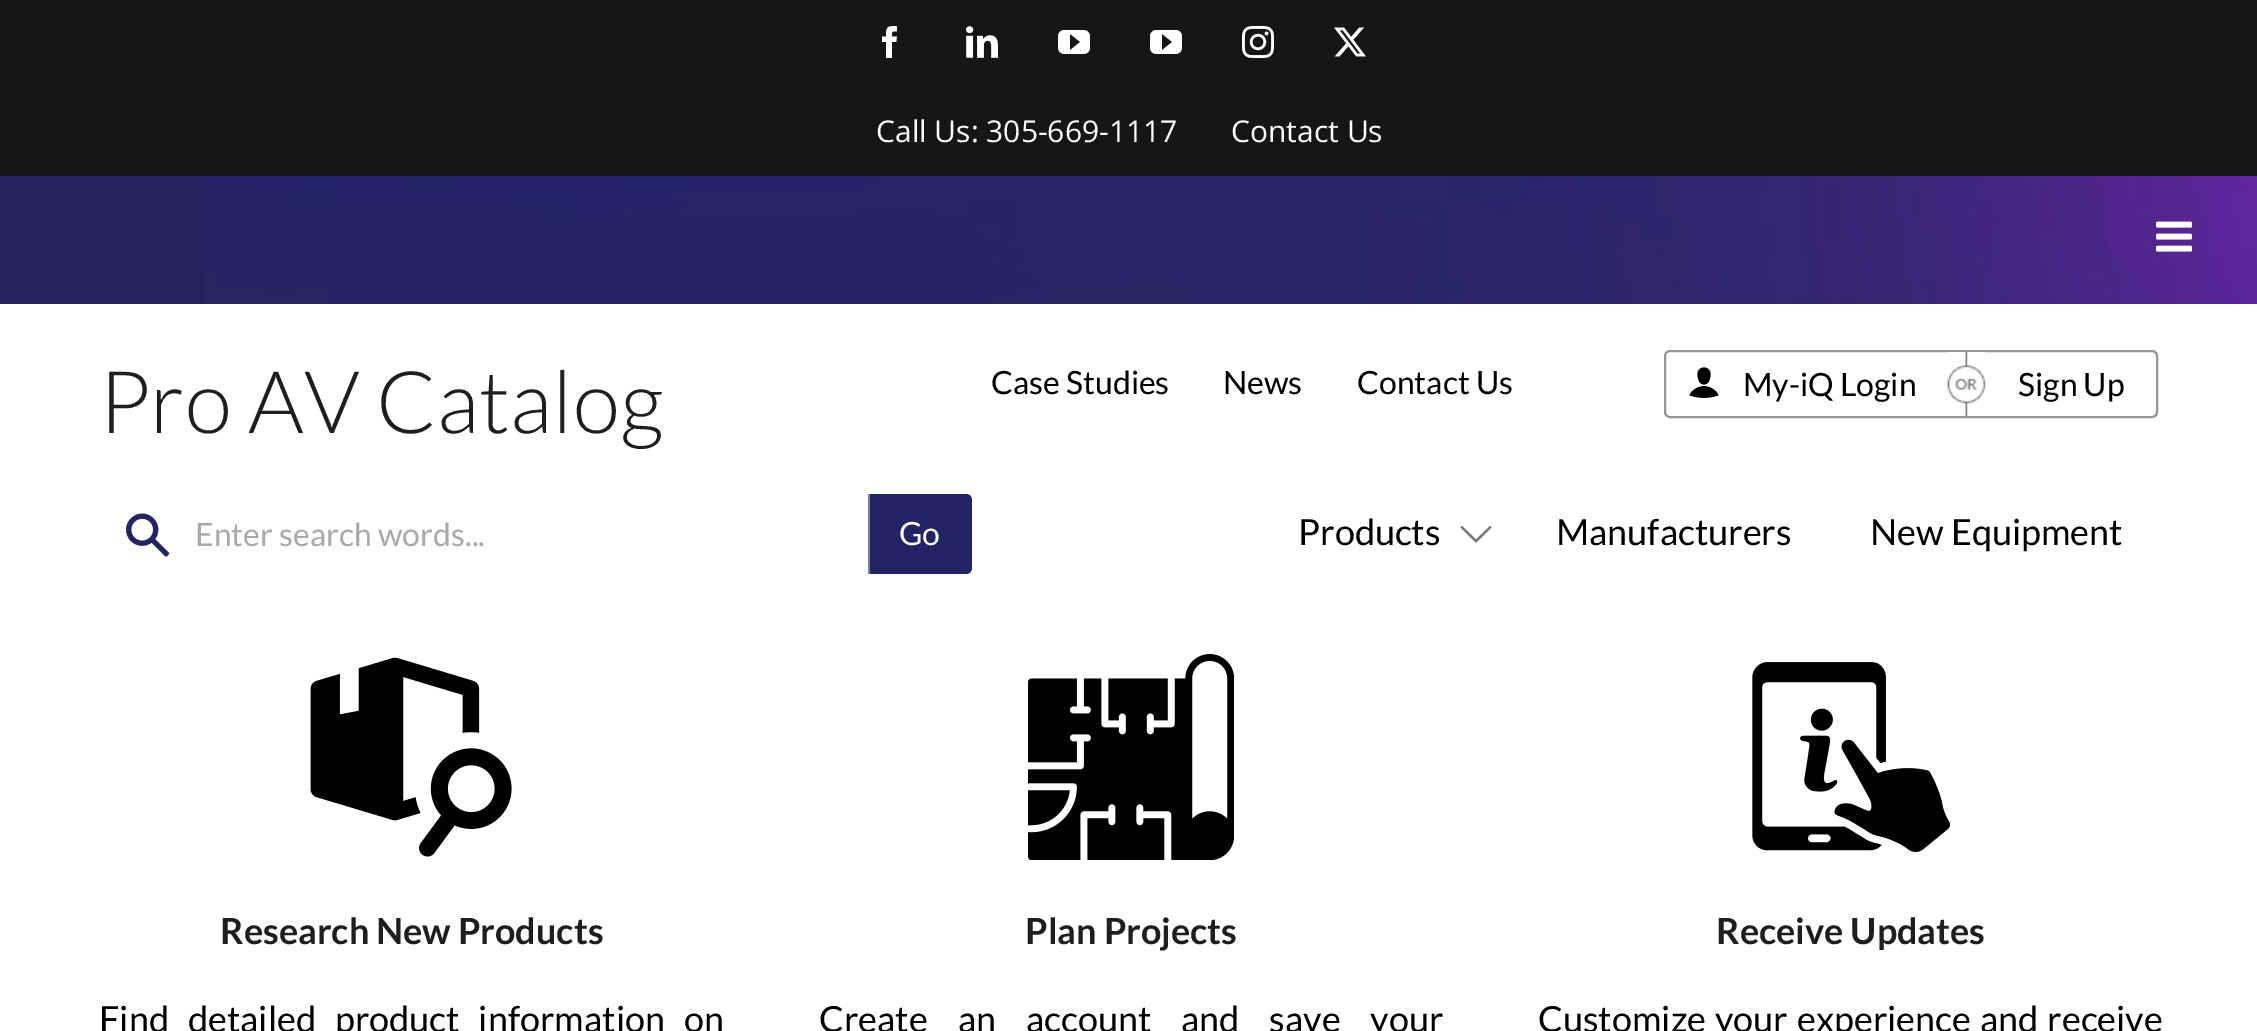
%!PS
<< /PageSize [2257 1031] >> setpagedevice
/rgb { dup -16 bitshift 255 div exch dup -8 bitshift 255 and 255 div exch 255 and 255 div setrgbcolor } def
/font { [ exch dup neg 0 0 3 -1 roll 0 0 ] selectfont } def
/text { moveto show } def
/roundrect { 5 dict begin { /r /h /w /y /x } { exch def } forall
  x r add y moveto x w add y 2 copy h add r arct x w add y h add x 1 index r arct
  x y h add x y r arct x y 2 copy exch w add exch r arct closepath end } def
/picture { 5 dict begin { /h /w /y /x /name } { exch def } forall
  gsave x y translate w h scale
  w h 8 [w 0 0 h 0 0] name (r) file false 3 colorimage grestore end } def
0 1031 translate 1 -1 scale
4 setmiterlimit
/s1 { /OpenSans-Regular 30 font 16#FFFFFF rgb } def
/s2 { /Lato-Light 86.5 font 16#1E1E1E rgb } def
/s3 { /Lato-Regular 32 font 16#000000 rgb } def
/s4 { /Lato-Regular 32 font 16#AAA9A9 rgb } def
/s5 { /Lato-Regular 32 font 16#FFFFFF rgb } def
/s6 { /Lato-Regular 36 font 16#000000 rgb } def
/s7 { /Lato-Bold 36 font 16#1E1E1E rgb } def
16#FFFFFF rgb
0 0 2257 1031 rectfill
16#161616 rgb
0 0 2257 176 rectfill
(pic1.raw) 882 26 15 32 picture
(pic2.raw) 966 26 32 32 picture
(pic3.raw) 1058 30 32 24 picture
(pic3.raw) 1150 30 32 24 picture
(pic4.raw) 1242 26 32 32 picture
(pic5.raw) 1334 27 32 30 picture
s1
(Call Us: 305-669-1117) 876 142 text
(Contact Us) 1231 142 text
16#222462 rgb
0 176 203 128 rectfill
(pic6.raw) 203 176 2054 128 picture
(pic7.raw) 2156 221 36 31 picture
s2
(Pro AV Catalog) 99 433 text
s3
(Case Studies) 991 394 text
(News) 1223 394 text
(Contact Us) 1357 394 text
16#969696 rgb
2 setlinewidth
1665 351 492 66 5 roundrect stroke
(pic8.raw) 1689 367 30 31 picture
s3
(My-iQ Login) 1743 396 text
(pic9.raw) 1947 352 39 64 picture
(Sign Up) 2018 396 text
(pic10.raw) 126 513 44 44 picture
s4
(Enter search words...) 195 546 text
16#242465 rgb
868 494 moveto 966 494 lineto 969.5 494 972 496.5 972 500 curveto 972 568 lineto 972 571.5 969.5 574 966 574 curveto 868 574 lineto closepath fill
16#7C7CA3 rgb
868 494 2 80 rectfill
s5
(Go) 899 545 text
s6
(Products) 1298 545 text
(pic11.raw) 1460 526 32 17 picture
(Manufacturers) 1556 545 text
(New Equipment) 1870 545 text
(pic12.raw) 310 657 202 200 picture
s7
(Research New Products) 220 944 text
/Lato-Regular 36 font
16#000000 rgb
99 1032 moveto 12 0 32 (Find detailed product information on) widthshow
(pic13.raw) 1028 654 206 206 picture
s7
(Plan Projects) 1025 944 text
/Lato-Regular 36 font
16#000000 rgb
819 1032 moveto 23 0 32 (Create an account and save your) widthshow
(pic14.raw) 1752 662 198 190 picture
s7
(Receive Updates) 1716 944 text
/Lato-Regular 36 font
16#000000 rgb
1538 1032 moveto 2 0 32 (Customize your experience and receive) widthshow
showpage
